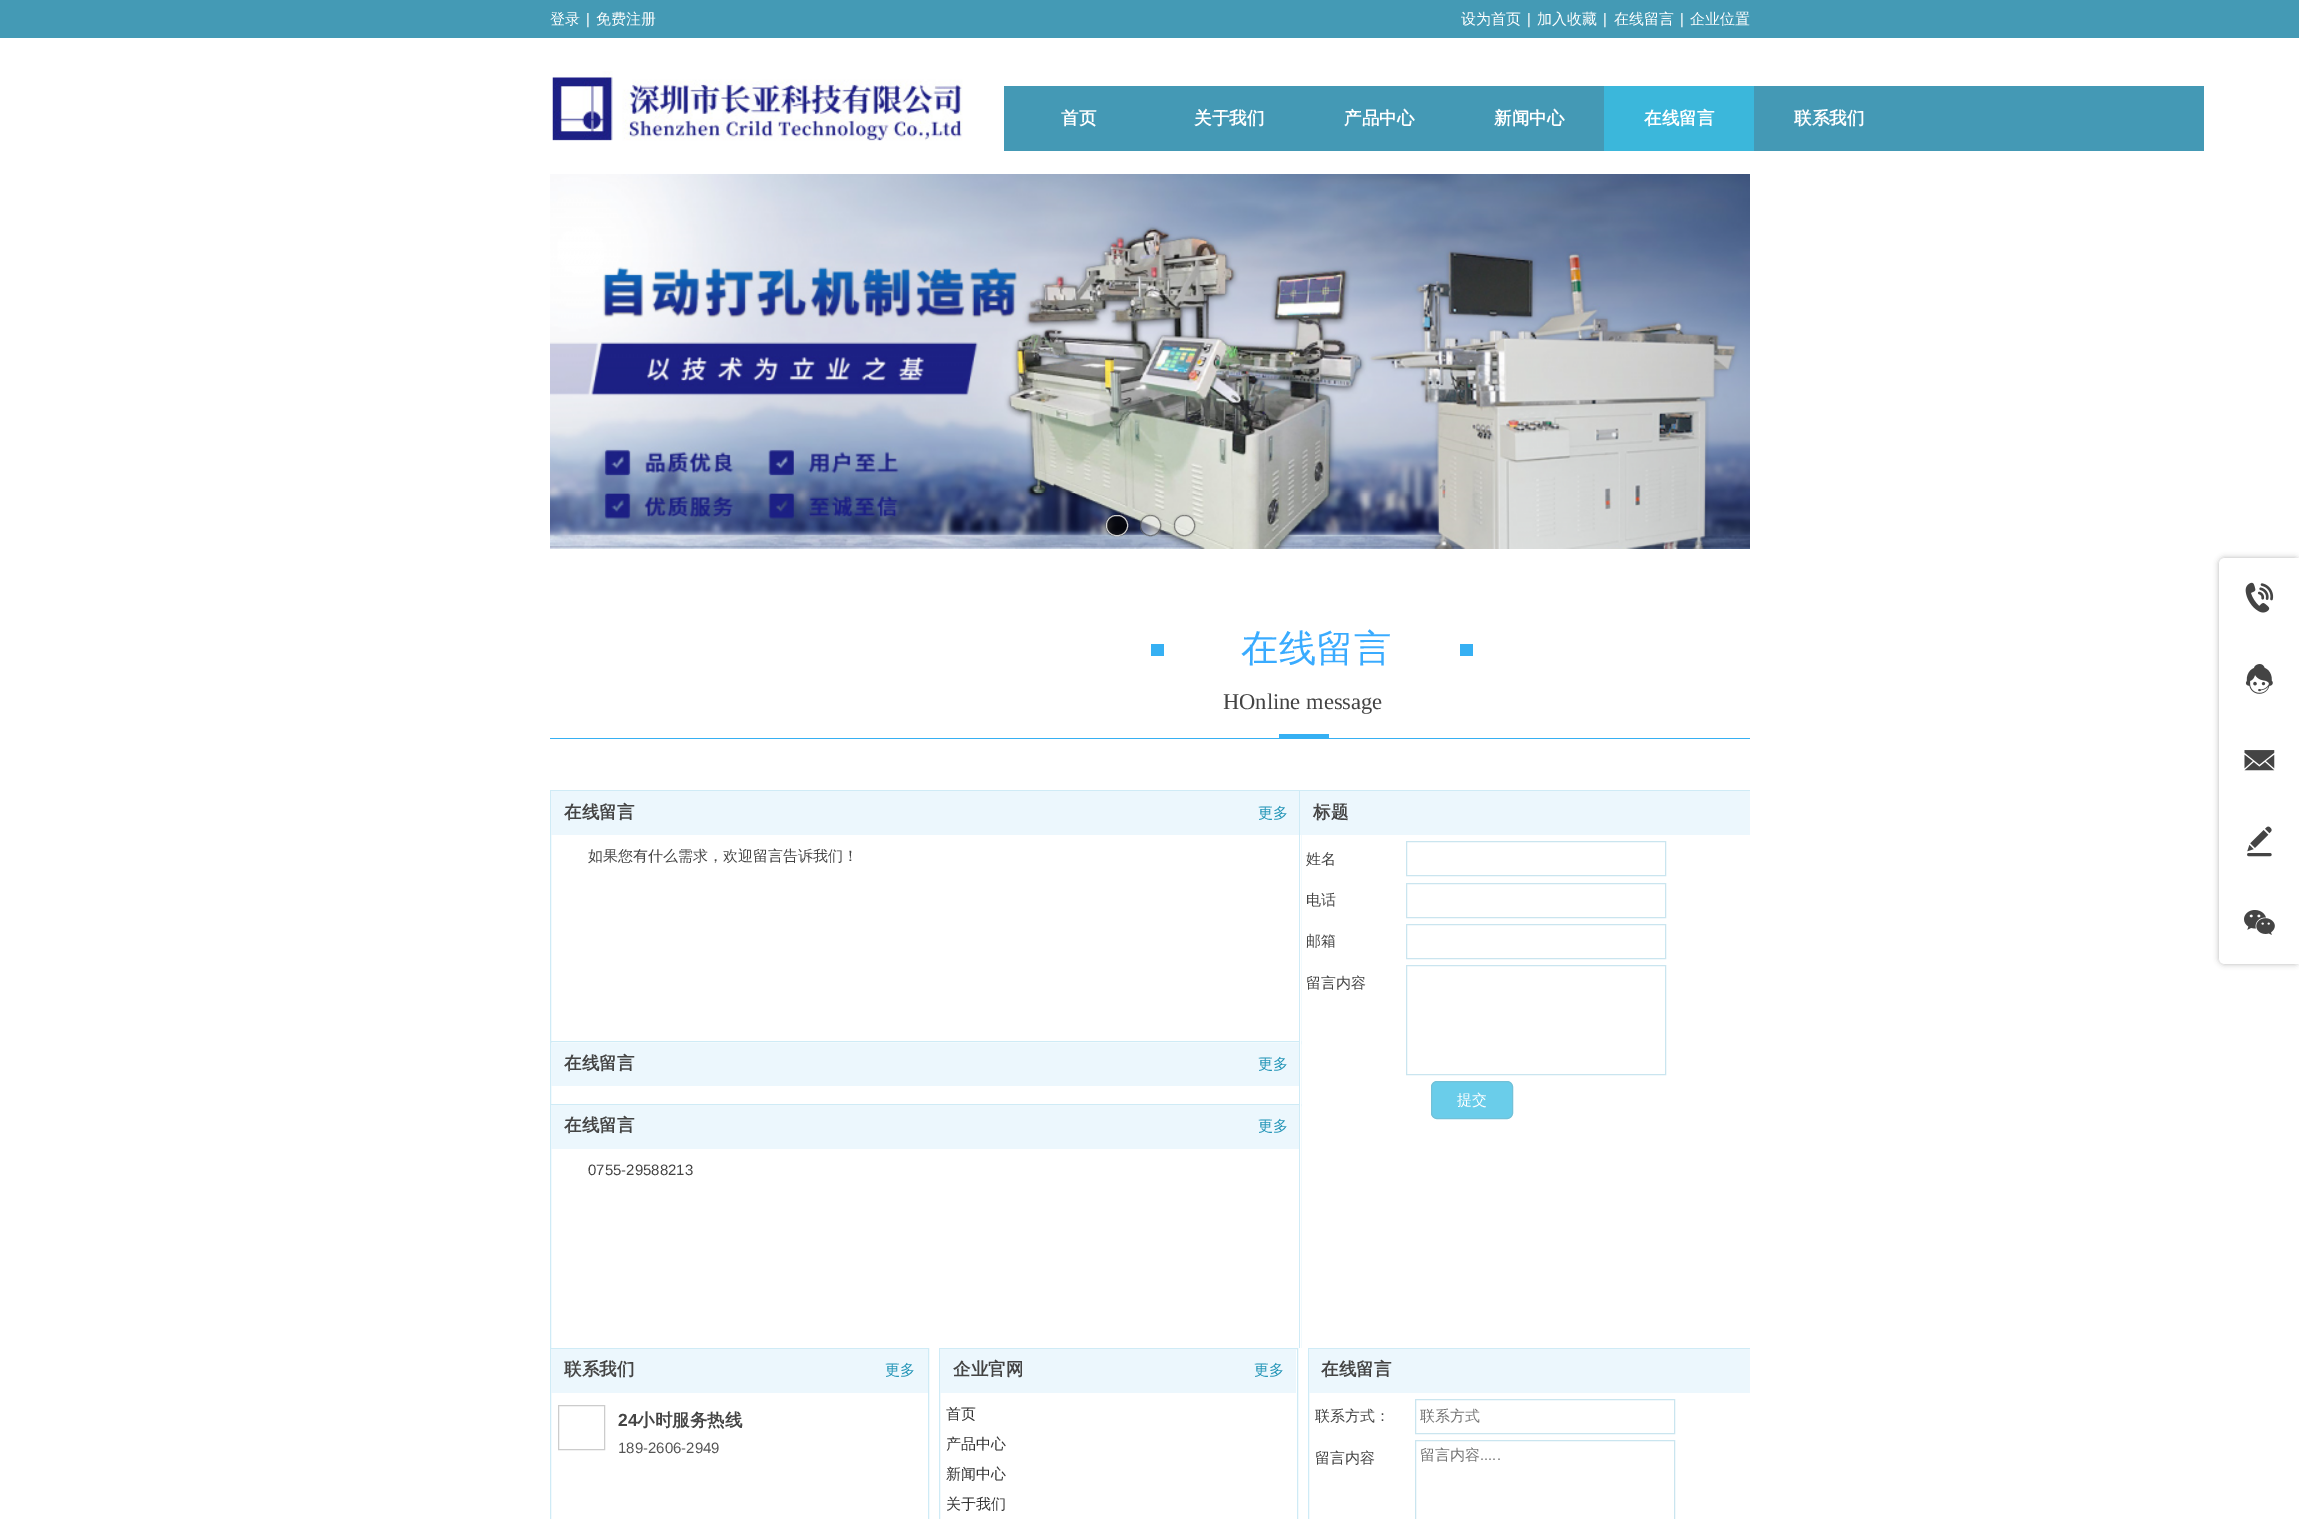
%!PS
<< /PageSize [2299 1519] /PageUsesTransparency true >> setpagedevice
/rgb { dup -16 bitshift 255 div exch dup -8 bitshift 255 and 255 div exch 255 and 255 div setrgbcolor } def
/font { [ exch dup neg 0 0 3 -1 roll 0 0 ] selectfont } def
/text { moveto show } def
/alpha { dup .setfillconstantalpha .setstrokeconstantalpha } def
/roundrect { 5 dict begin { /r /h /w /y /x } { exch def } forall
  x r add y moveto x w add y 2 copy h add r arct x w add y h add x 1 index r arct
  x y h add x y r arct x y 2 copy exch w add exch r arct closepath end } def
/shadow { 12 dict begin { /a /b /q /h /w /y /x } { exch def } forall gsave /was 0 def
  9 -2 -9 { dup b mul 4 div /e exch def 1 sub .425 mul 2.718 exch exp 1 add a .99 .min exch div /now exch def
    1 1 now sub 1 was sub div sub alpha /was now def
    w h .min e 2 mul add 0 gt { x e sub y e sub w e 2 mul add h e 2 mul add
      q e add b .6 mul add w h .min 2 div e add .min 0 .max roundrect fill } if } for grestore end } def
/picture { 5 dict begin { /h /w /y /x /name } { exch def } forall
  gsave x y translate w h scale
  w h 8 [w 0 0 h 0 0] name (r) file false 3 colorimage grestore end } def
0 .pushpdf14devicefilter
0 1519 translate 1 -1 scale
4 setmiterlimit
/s1 { /WenQuanYiZenHei-Medium 15 font 16#FFFFFF rgb } def
/s2 { /LiberationSans-Regular 15 font 16#FFFFFF rgb } def
/s3 { /WenQuanYiZenHei-Bold 17.5 font 16#FFFFFF rgb } def
/s4 { /WenQuanYiZenHei-Medium 37.5 font 16#39ABFF rgb } def
/s5 { /LiberationSerif-Regular 22.5 font 16#444444 rgb } def
/s6 { /WenQuanYiZenHei-Bold 17.5 font 16#444444 rgb } def
/s7 { /WenQuanYiZenHei-Medium 15 font 16#2495B7 rgb } def
/s8 { /WenQuanYiZenHei-Medium 15 font 16#444444 rgb } def
/s9 { /LiberationSans-Regular 15 font 16#444444 rgb } def
/s10 { /LiberationSans-Bold 17.5 font 16#444444 rgb } def
/s11 { /LiberationSans-Regular 15 font 16#555555 rgb } def
/s12 { /WenQuanYiZenHei-Medium 15 font 16#333333 rgb } def
/s13 { /WenQuanYiZenHei-Medium 15 font 16#757575 rgb } def
/s14 { /LiberationSans-Regular 15 font 16#757575 rgb } def
16#FFFFFF rgb
0 0 2299 1519 rectfill
16#449AB5 rgb
0 0 2299 38 rectfill
s1
(登录) 550 24 text
s2
(|) 586 24 text
s1
(免费注册) 596 24 text
(设为首页) 1461 24 text
s2
(|) 1527 24 text
s1
(加入收藏) 1537 24 text
s2
(|) 1603 24 text
s1
(在线留言) 1614 24 text
s2
(|) 1680 24 text
s1
(企业位置) 1690 24 text
(pic1.raw) 552 71 411 70 picture
16#4499B5 rgb
1004 86 1200 65 rectfill
s3
(首页) 1061 124 text
(关于我们) 1194 124 text
(产品中心) 1344 124 text
(新闻中心) 1494 124 text
16#3BB7DB rgb
1604 86 150 65 rectfill
s3
(在线留言) 1644 124 text
(联系我们) 1794 124 text
(pic2.raw) 550 174 1200 375 picture
gsave
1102 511 moveto 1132 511 lineto 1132 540 lineto 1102 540 lineto closepath 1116 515 moveto 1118 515 lineto 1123.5 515 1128 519.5 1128 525 curveto 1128 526 lineto 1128 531.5 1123.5 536 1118 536 curveto 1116 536 lineto 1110.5 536 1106 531.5 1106 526 curveto 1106 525 lineto 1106 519.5 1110.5 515 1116 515 curveto closepath eoclip newpath
16#000000 rgb
1106 515 22 21 10 1 0.48 shadow
grestore
0.8 alpha
16#000000 rgb
1106 515 22 21 10 roundrect fill
16#FFFFFF rgb
1106.5 515.5 21 20 9.5 roundrect stroke
gsave
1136 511 moveto 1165 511 lineto 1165 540 lineto 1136 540 lineto closepath 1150 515 moveto 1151 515 lineto 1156.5 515 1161 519.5 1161 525 curveto 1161 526 lineto 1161 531.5 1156.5 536 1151 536 curveto 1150 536 lineto 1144.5 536 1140 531.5 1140 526 curveto 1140 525 lineto 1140 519.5 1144.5 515 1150 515 curveto closepath eoclip newpath
1 alpha
16#000000 rgb
1140 515 21 21 10 1 0.24 shadow
grestore
0.4 alpha
1140 515 21 21 10 roundrect fill
16#000000 rgb
1140.5 515.5 20 20 9.5 roundrect stroke
gsave
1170 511 moveto 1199 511 lineto 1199 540 lineto 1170 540 lineto closepath 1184 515 moveto 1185 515 lineto 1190.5 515 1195 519.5 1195 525 curveto 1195 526 lineto 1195 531.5 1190.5 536 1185 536 curveto 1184 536 lineto 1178.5 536 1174 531.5 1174 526 curveto 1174 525 lineto 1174 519.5 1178.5 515 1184 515 curveto closepath eoclip newpath
1 alpha
1174 515 21 21 10 1 0.24 shadow
grestore
16#FFFFFF rgb
1174 515 21 21 10 roundrect fill
16#000000 rgb
1174.5 515.5 20 20 9.5 roundrect stroke
1 alpha
16#36B0F3 rgb
1151 644 13 12 rectfill
s4
(在线留言) 1241 661 text
16#36B0F3 rgb
1460 644 13 12 rectfill
s5
(HOnline message) 1223 709 text
16#36B0F3 rgb
1279 734 50 4 rectfill
550 738 1200 1 rectfill
16#CFEBF6 rgb
550.5 790.5 750 253 rectstroke
16#ECF7FD rgb
551 791 748 44 rectfill
s6
(在线留言) 564 818 text
s7
(更多) 1258 818 text
s8
(如果您有什么需求，欢迎留言告诉我们！) 588 861 text
16#CFEBF6 rgb
550.5 1041.5 750 64 rectstroke
gsave
550 790 1200 558 rectclip
550.5 1104.5 750 244 rectstroke
1299.5 790.5 741 577 rectstroke
grestore
16#ECF7FD rgb
1300 791 450 44 rectfill
s6
(标题) 1313 818 text
16#FFFFFF rgb
1300 835 1 513 rectfill
s8
(姓名) 1306 864 text
16#CAE5EF rgb
1406.5 841.5 259 34 rectstroke
s8
(电话) 1306 905 text
16#CAE5EF rgb
1406.5 883.5 259 34 rectstroke
s8
(邮箱) 1306 946 text
16#CAE5EF rgb
1406.5 924.5 259 34 rectstroke
s8
(留言内容) 1306 988 text
16#CAE5EF rgb
1406.5 965.5 259 109 rectstroke
16#6ACDEA rgb
1431.5 1081.5 81 37 5.5 roundrect gsave fill grestore
16#72C1D8 rgb
stroke
s1
(提交) 1457 1105 text
16#ECF7FD rgb
551 1043 748 43 rectfill
s6
(在线留言) 564 1069 text
s7
(更多) 1258 1069 text
16#ECF7FD rgb
551 1105 748 44 rectfill
s6
(在线留言) 564 1131 text
s7
(更多) 1258 1131 text
s9
(0755-29588213) 588 1175 text
16#CFEBF6 rgb
550.5 1348.5 378 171 rectstroke
16#ECF7FD rgb
551 1349 377 44 rectfill
s6
(联系我们) 564 1375 text
s7
(更多) 885 1375 text
16#CCCCCC rgb
558.5 1405.5 46 44 rectstroke
s10
(24) 618 1426 text
s6
(小时服务热线) 637 1426 text
s11
(189-2606-2949) 618 1453 text
16#CFEBF6 rgb
939.5 1348.5 358 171 rectstroke
16#ECF7FD rgb
940 1349 356 44 rectfill
s6
(企业官网) 953 1375 text
s7
(更多) 1254 1375 text
s12
(首页) 946 1419 text
(产品中心) 946 1449 text
(新闻中心) 946 1479 text
(关于我们) 946 1509 text
gsave
550 1348 1200 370 rectclip
16#CFEBF6 rgb
1308.5 1348.5 511 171 rectstroke
grestore
16#ECF7FD rgb
1309 1349 441 44 rectfill
s6
(在线留言) 1321 1375 text
s8
(联系方式：) 1315 1421 text
16#CAE5EF rgb
1415.5 1399.5 259 34 rectstroke
s13
(联系方式) 1420 1421 text
s8
(留言内容) 1315 1463 text
16#CAE5EF rgb
1415.5 1440.5 259 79 rectstroke
s13
(留言内容) 1420 1460 text
s14
(.....) 1480 1460 text
16#000000 rgb
2219 558 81 406 6 3 0.3 shadow
16#FFFFFF rgb
2225 558 moveto 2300 558 lineto 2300 964 lineto 2225 964 lineto 2221.5 964 2219 961.5 2219 958 curveto 2219 564 lineto 2219 560.5 2221.5 558 2225 558 curveto closepath fill
(pic3.raw) 2245 582 29 31 picture
(pic4.raw) 2245 664 28 30 picture
(pic5.raw) 2244 750 31 21 picture
(pic6.raw) 2247 826 25 31 picture
(pic7.raw) 2244 910 31 25 picture
.poppdf14devicefilter showpage
